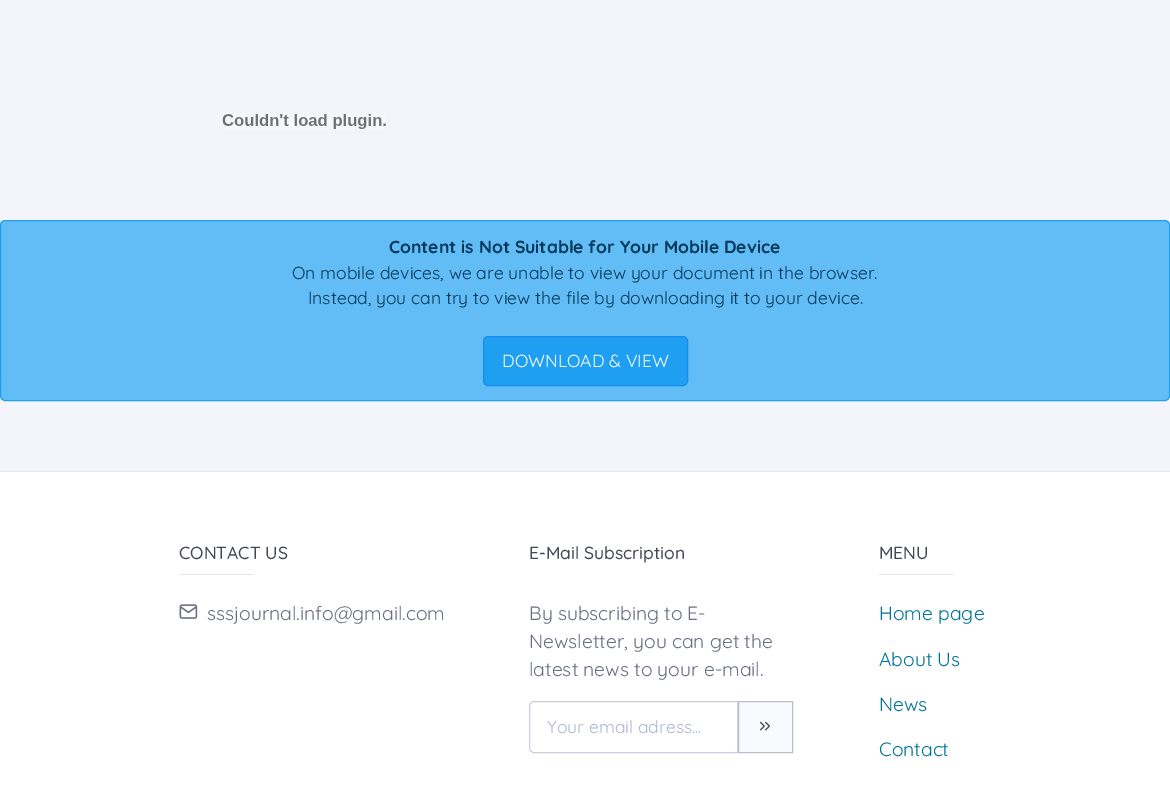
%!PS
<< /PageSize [1170 806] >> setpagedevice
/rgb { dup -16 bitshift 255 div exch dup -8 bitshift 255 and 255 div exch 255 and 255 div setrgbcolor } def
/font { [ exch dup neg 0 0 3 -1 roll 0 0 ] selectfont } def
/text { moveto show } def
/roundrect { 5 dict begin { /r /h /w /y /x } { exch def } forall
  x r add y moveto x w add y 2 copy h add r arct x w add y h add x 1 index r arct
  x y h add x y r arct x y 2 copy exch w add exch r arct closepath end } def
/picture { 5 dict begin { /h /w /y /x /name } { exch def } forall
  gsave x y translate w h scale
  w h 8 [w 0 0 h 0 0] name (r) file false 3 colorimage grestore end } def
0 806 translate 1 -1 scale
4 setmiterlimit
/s1 { /Quicksand-Bold 17.5 font 16#053858 rgb } def
/s2 { /Quicksand-Regular 17.5 font 16#053858 rgb } def
/s3 { /Quicksand-Regular 17.5 font 16#FFFFFF rgb } def
/s4 { /Quicksand-Medium 17.5 font 16#464855 rgb } def
/s5 { /Quicksand-Regular 19.25 font 16#6B6F82 rgb } def
/s6 { /Quicksand-Regular 17.5 font 16#AEB5DA rgb } def
/s7 { /Quicksand-Regular 19.25 font 16#007398 rgb } def
16#F4F5FA rgb
0 0 1170 806 rectfill
(pic1.raw) 222 114 164 15 picture
16#62BCF6 rgb
0.5 220.5 1169 180 4.5 roundrect gsave fill grestore
16#1E9FF2 rgb
stroke
s1
(Content is Not Suitable for Your Mobile Device) 389 253 text
s2
(On mobile devices, we are unable to view your document in the browser.) 292 279 text
(Instead, you can try to view the file by downloading it to your device.) 308 304 text
16#1E9FF2 rgb
483.5 336.5 204 49 4.5 roundrect gsave fill grestore
16#168DEE rgb
stroke
s3
(DOWNLOAD & VIEW) 502 367 text
0 472 1170 334 rectfill
16#E6E6E6 rgb
0 471 1170 1 rectfill
s4
(CONTACT US) 179 559 text
16#E6E6E6 rgb
179 574 75 1 rectfill
(pic2.raw) 179 604 19 15 picture
s5
(sssjournal.info@gmail.com) 207 620 text
s4
(E-Mail Subscription) 529 559 text
s5
(By subscribing to E-) 529 620 text
(Newsletter, you can get the) 529 648 text
(latest news to your e-mail.) 529 676 text
16#CACFE7 rgb
534 701.5 moveto 737.5 701.5 lineto 737.5 752.5 lineto 534 752.5 lineto 531.5 752.5 529.5 750.5 529.5 748 curveto 529.5 706 lineto 529.5 703.5 531.5 701.5 534 701.5 curveto closepath stroke
s6
(Your email adress...) 547 733 text
16#F9FAFD rgb
738.5 701.5 moveto 792.5 701.5 lineto 792.5 752.5 lineto 738.5 752.5 lineto closepath gsave fill grestore
16#BABFC7 rgb
stroke
(pic3.raw) 759 721 12 10 picture
s4
(MENU) 879 559 text
16#E6E6E6 rgb
879 574 75 1 rectfill
s7
(Home page) 879 620 text
(About Us) 879 666 text
(News) 879 711 text
(Contact) 879 756 text
showpage
